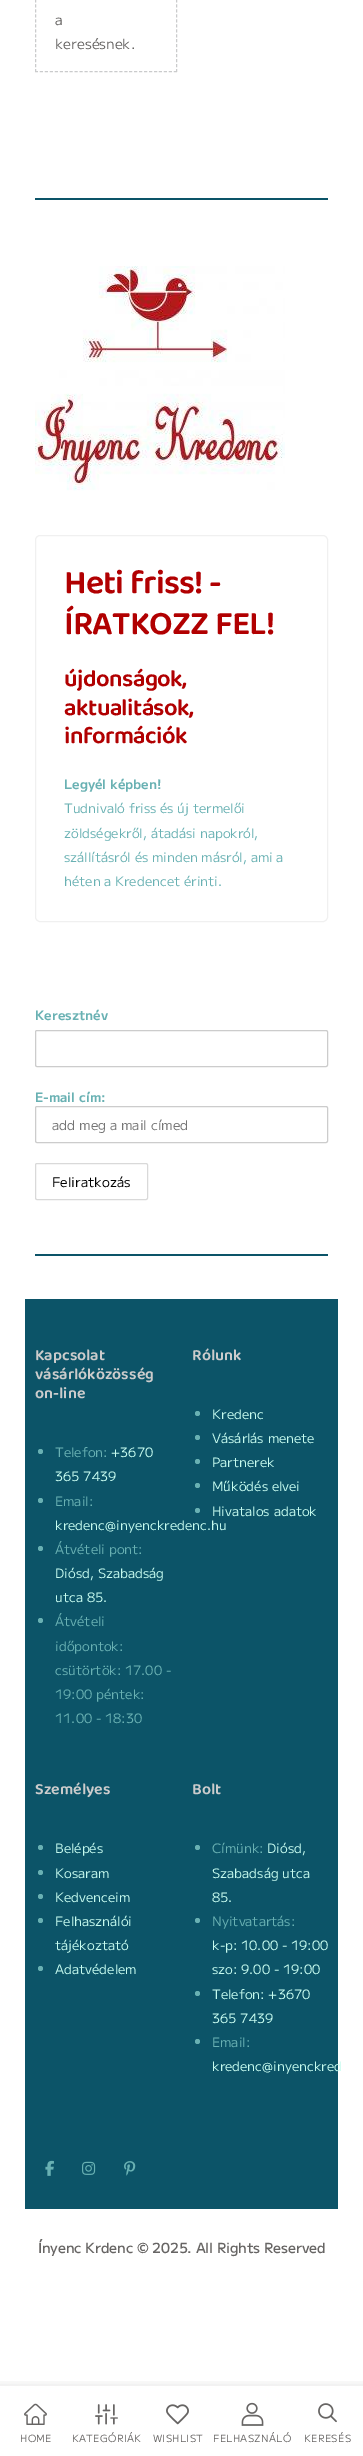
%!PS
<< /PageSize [363 2456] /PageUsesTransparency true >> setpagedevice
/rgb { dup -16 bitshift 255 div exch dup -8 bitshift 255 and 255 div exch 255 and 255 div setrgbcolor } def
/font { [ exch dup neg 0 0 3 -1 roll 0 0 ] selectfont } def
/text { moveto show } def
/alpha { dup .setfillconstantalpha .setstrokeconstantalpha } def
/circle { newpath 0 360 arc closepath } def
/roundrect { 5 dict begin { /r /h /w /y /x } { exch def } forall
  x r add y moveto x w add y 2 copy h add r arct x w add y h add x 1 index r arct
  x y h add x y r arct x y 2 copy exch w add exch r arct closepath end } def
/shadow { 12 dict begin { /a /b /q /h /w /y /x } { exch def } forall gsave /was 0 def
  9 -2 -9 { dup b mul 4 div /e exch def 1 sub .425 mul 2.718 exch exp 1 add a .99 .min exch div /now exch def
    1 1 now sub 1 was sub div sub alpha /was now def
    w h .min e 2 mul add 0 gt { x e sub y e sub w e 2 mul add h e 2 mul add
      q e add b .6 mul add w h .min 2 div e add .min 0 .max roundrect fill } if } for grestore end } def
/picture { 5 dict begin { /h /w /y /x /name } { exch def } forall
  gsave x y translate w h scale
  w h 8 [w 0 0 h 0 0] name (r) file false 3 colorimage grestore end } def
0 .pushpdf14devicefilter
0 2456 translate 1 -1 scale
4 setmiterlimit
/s1 { /MPLUS1-Regular 14 font 16#676564 rgb } def
/s2 { /MPLUS1-Bold 13 font 16#69B1B3 rgb } def
/s3 { /MPLUS1-Regular 13 font 16#69B1B3 rgb } def
/s4 { /MPLUS1-Regular 13.25 font 16#757575 rgb } def
/s5 { /MPLUS1-Regular 13.25 font 16#000000 rgb } def
/s6 { /BalooBhai2-SemiBold 16 font 16#CCCCCC rgb } def
/s7 { /MPLUS1-Regular 13 font 16#C6FBEF rgb } def
16#FFFFFF rgb
0 0 363 2456 rectfill
16#CACBCC rgb
[3 1.97] 0 setdash
176.5 -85 moveto 176.5 72 lineto stroke
[3 1.96] 0 setdash
35 71.5 moveto 177 71.5 lineto stroke
[3 1.97] 0 setdash
35.5 -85 moveto 35.5 72 lineto stroke
s1
(a) 55 25 text
(keresésnek.) 55 49 text
16#0C5468 rgb
35 198 293 2 rectfill
(pic1.raw) 35 266 250 225 picture
16#F0F0F0 rgb
[] 0 setdash
35.5 535.5 292 386 4.5 roundrect stroke
/BalooBhai2-SemiBold 34 font
16#B10001 rgb
64 593 moveto -0.8 0 (Heti friss! -) ashow
64 634 moveto -0.8 0 (ÍRATKOZZ FEL!) ashow
/BalooBhai2-SemiBold 24 font
64 686 moveto -0.6 0 (újdonságok,) ashow
64 715 moveto -0.6 0 (aktualitások,) ashow
64 743 moveto -0.6 0 (információk) ashow
s2
(Legyél képben!) 64 789 text
s3
(Tudnivaló friss és új termelői) 64 813 text
(zöldségekről, átadási napokról,) 64 838 text
(szállításról és minden másról, ami a) 64 862 text
(héten a Kredencet érinti.) 64 886 text
s2
(Keresztnév) 35 1020 text
16#CCCCCC rgb
35.5 1030.5 292 36 1.5 roundrect stroke
s2
(E-mail cím:) 35 1102 text
16#CCCCCC rgb
35.5 1106.5 292 36 1.5 roundrect stroke
s4
(add meg a mail címed) 52 1130 text
16#D9D9D9 rgb
35.5 1163.5 112 36 1.5 roundrect stroke
s5
(Feliratkozás) 52 1187 text
16#0C5468 rgb
35 1254 293 2 rectfill
25 1299 313 910 rectfill
s6
(Kapcsolat) 35 1360 text
(vásárlóközösség) 35 1379 text
(on-line) 35 1398 text
16#69B1B3 rgb
40.5 1451.5 2.5 circle fill
s3
(Telefon:) 55 1457 text
s7
(+3670) 111 1457 text
(365 7439) 55 1481 text
16#69B1B3 rgb
40.5 1500.5 2.5 circle fill
(Email:) 55 1506 text
s7
(kredenc@inyenckredenc.hu) 55 1530 text
16#69B1B3 rgb
40.5 1548.5 2.5 circle fill
(Átvételi pont:) 55 1554 text
s7
(Diósd, Szabadság) 55 1578 text
(utca 85.) 55 1602 text
16#69B1B3 rgb
40.5 1620.5 2.5 circle fill
(Átvételi) 55 1626 text
(időpontok:) 55 1651 text
(csütörtök: 17.00 -) 55 1675 text
(19:00 péntek:) 55 1699 text
(11.00 - 18:30) 55 1723 text
s6
(Rólunk) 192 1360 text
16#69B1B3 rgb
197.5 1413.5 2.5 circle fill
s7
(Kredenc) 212 1419 text
16#69B1B3 rgb
197.5 1437.5 2.5 circle fill
s7
(Vásárlás menete) 212 1443 text
16#69B1B3 rgb
197.5 1461.5 2.5 circle fill
s7
(Partnerek) 212 1467 text
16#69B1B3 rgb
197.5 1485.5 2.5 circle fill
s7
(Működés elvei) 212 1491 text
16#69B1B3 rgb
197.5 1510.5 2.5 circle fill
s7
(Hivatalos adatok) 212 1516 text
s6
(Személyes) 35 1794 text
16#69B1B3 rgb
40.5 1847.5 2.5 circle fill
s7
(Belépés) 55 1853 text
16#69B1B3 rgb
40.5 1872.5 2.5 circle fill
s7
(Kosaram) 55 1878 text
16#69B1B3 rgb
40.5 1896.5 2.5 circle fill
s7
(Kedvenceim) 55 1902 text
16#69B1B3 rgb
40.5 1920.5 2.5 circle fill
s7
(Felhasználói) 55 1926 text
(tájékoztató) 55 1950 text
16#69B1B3 rgb
40.5 1968.5 2.5 circle fill
s7
(Adatvédelem) 55 1974 text
s6
(Bolt) 192 1794 text
16#69B1B3 rgb
197.5 1847.5 2.5 circle fill
s3
(Címünk:) 212 1853 text
s7
(Diósd,) 267 1853 text
(Szabadság utca) 212 1878 text
(85.) 212 1902 text
16#69B1B3 rgb
197.5 1920.5 2.5 circle fill
(Nyitvatartás:) 212 1926 text
s7
(k-p: 10.00 - 19:00) 212 1950 text
(szo: 9.00 - 19:00) 212 1974 text
16#69B1B3 rgb
197.5 1993.5 2.5 circle fill
s7
(Telefon: +3670) 212 1999 text
(365 7439) 212 2023 text
16#69B1B3 rgb
197.5 2041.5 2.5 circle fill
(Email:) 212 2047 text
s7
(kredenc@inyenckred) 212 2071 text
(pic2.raw) 45 2160 9 16 picture
(pic3.raw) 82 2161 14 14 picture
(pic4.raw) 124 2161 12 15 picture
/MPLUS1-Medium 14 font
16#676564 rgb
38 2253 moveto -0.15 0 (Ínyenc Krdenc © 2025. All Rights Reserved) ashow
gsave
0 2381 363 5 rectclip
16#000000 rgb
-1 2385 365 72 0 5 0.1 shadow
grestore
(pic5.raw) 24 2403 23 22 picture
/MPLUS1-Regular 10 font
20 2442 moveto 0.25 0 (HOME) ashow
(pic6.raw) 95 2404 23 21 picture
72 2442 moveto 0.25 0 (KATEGÓRIÁK) ashow
(pic7.raw) 166 2404 23 21 picture
153 2442 moveto 0.25 0 (WISHLIST) ashow
(pic8.raw) 241 2402 23 24 picture
213 2442 moveto 0.25 0 (FELHASZNÁLÓ) ashow
(pic9.raw) 318 2403 19 20 picture
304 2442 moveto 0.25 0 (KERESÉS) ashow
.poppdf14devicefilter showpage
